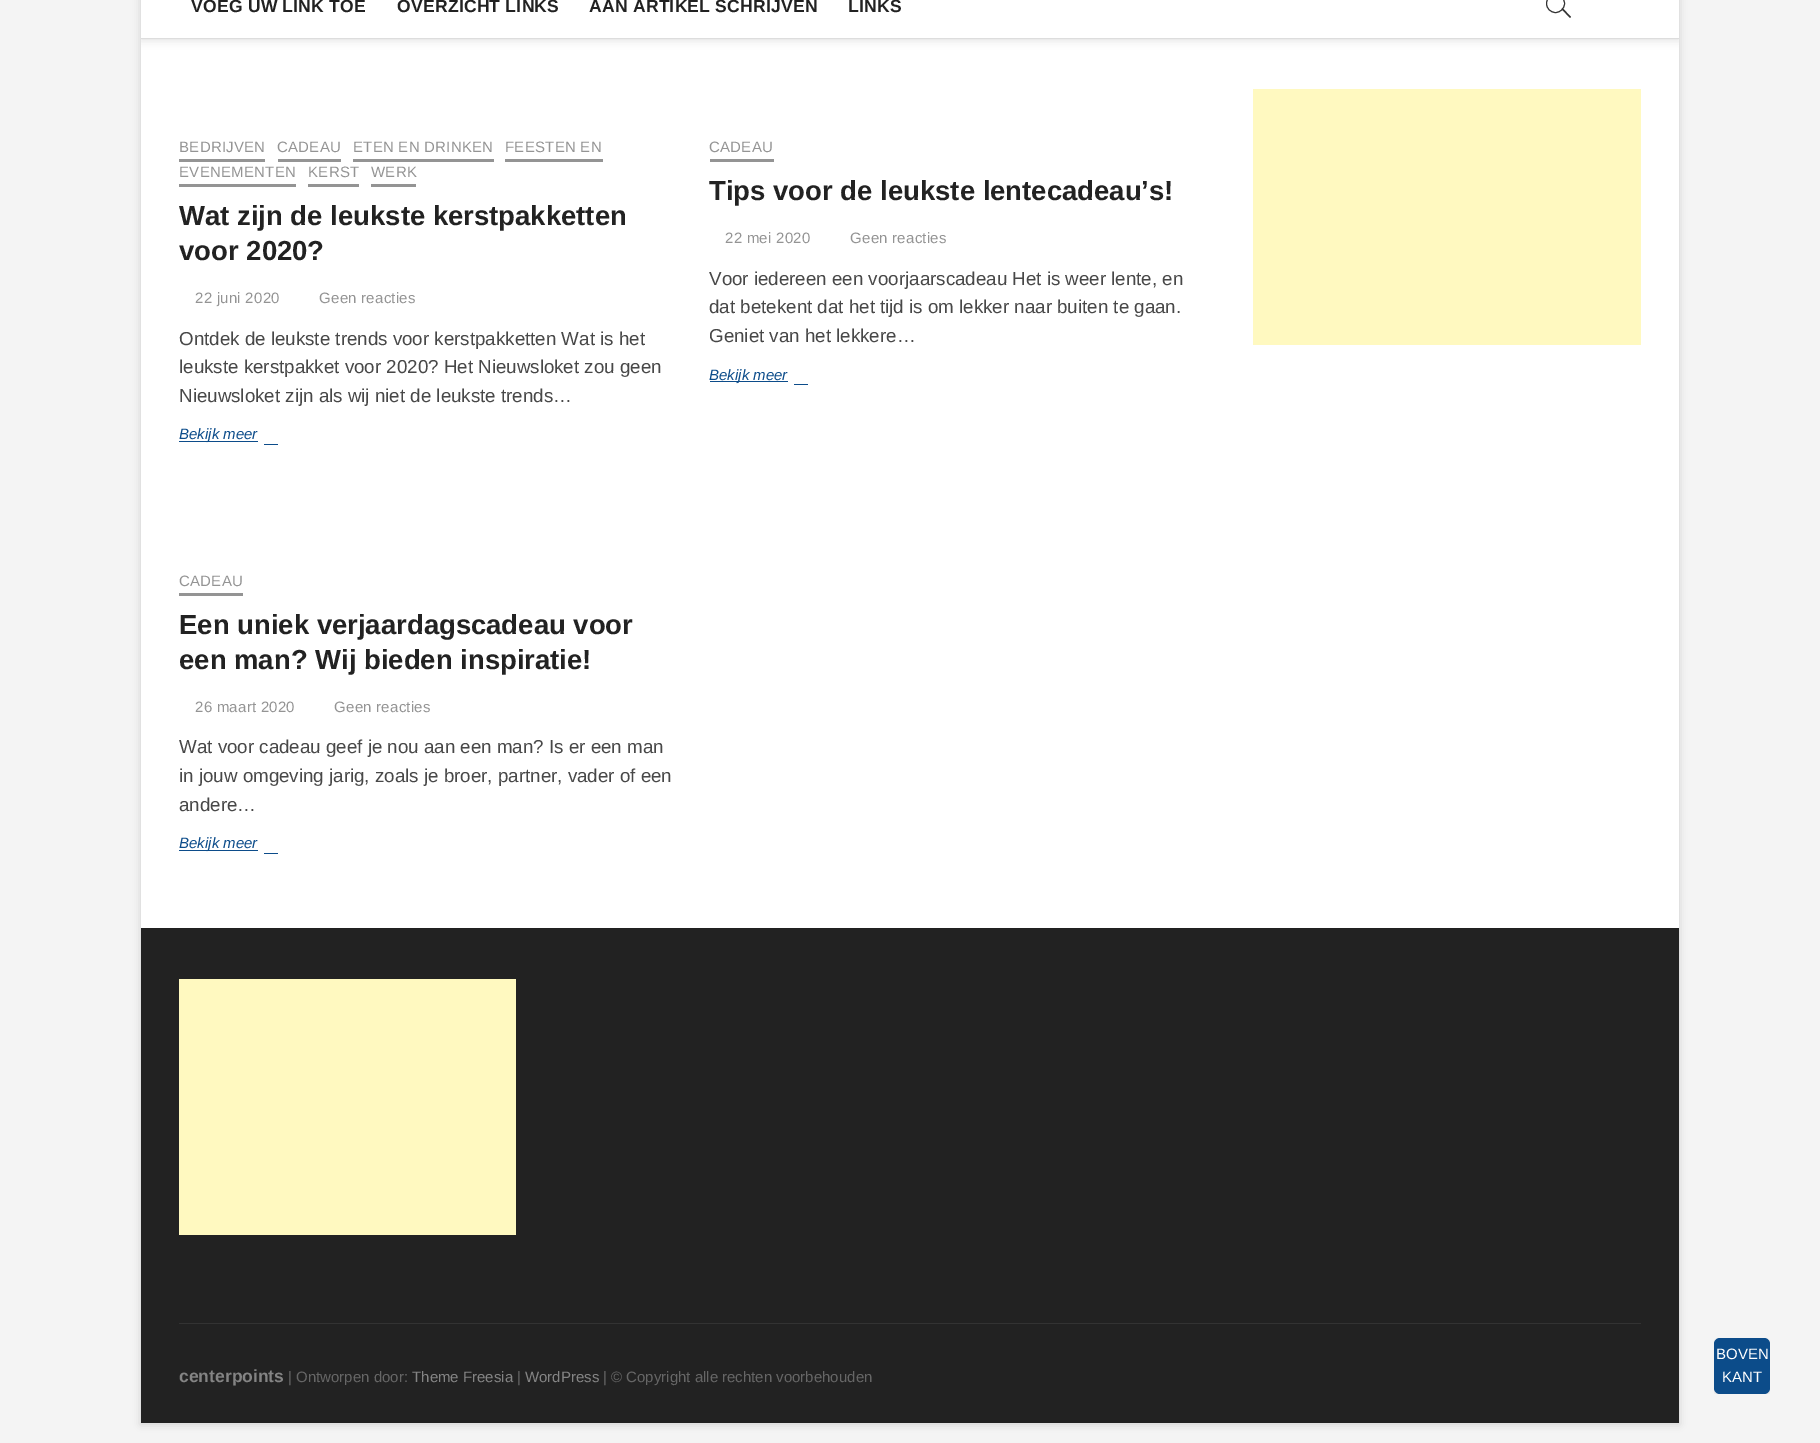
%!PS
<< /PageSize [1820 1443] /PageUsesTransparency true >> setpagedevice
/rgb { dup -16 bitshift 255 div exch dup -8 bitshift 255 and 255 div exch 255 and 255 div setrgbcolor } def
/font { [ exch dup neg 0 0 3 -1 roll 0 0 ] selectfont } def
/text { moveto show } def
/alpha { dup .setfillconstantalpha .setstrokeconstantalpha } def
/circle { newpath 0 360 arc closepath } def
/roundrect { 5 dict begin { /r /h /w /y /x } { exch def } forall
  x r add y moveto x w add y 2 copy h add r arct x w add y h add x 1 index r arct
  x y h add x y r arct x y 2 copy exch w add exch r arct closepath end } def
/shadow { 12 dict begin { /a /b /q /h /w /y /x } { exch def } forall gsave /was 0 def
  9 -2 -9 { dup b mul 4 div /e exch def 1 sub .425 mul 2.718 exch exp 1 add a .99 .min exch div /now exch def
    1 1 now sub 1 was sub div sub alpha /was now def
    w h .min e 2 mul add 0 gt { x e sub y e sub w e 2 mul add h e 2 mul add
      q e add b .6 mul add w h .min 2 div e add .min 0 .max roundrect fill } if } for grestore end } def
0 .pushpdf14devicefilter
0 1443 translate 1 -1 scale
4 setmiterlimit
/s1 { /LiberationSans-Bold 27.5 font 16#222222 rgb } def
/s2 { /LiberationSans-Regular 18.75 font 16#484848 rgb } def
/s3 { /LiberationSans-Italic 15 font 16#0C4C8A rgb } def
/s4 { /LiberationSans-Regular 15 font 16#FFFFFF rgb } def
/s5 { /LiberationSans-Bold 17.5 font 16#848484 rgb } def
/s6 { /LiberationSans-Regular 15 font 16#666666 rgb } def
/s7 { /LiberationSans-Regular 15 font 16#848484 rgb } def
16#F4F4F4 rgb
0 0 1820 1443 rectfill
16#000000 rgb
141 -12 1538 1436 0 4 0.15 shadow
16#FFFFFF rgb
141 0 1538 928 rectfill
gsave
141 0 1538 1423 rectclip
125 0 moveto 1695 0 lineto 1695 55 lineto 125 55 lineto closepath 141 -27 moveto 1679 -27 lineto 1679 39 lineto 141 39 lineto closepath eoclip newpath
16#000000 rgb
141 -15 1538 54 0 5 0.15 shadow
grestore
16#DDDDDD rgb
141 38 1538 1 rectfill
/LiberationSans-Bold 17.5 font
16#222222 rgb
191 12 moveto 0.25 0 (VOEG UW LINK TOE) ashow
397 12 moveto 0.25 0 (OVERZICHT LINKS) ashow
589 12 moveto 0.25 0 (AAN ARTIKEL SCHRIJVEN) ashow
848 12 moveto 0.25 0 (LINKS) ashow
16#333333 rgb
1555.5 3.5 9 circle stroke
1561.5 9 moveto 1562.5 8 lineto 1571 17 lineto 1570 18 lineto closepath fill
/LiberationSans-Regular 15 font
16#949494 rgb
179 152 moveto 0.25 0 (BEDRIJVEN) ashow
179 159 86 3 rectfill
277 152 moveto 0.25 0 (CADEAU) ashow
278 159 63 3 rectfill
353 152 moveto 0.25 0 (ETEN EN DRINKEN) ashow
353 159 141 3 rectfill
505 152 moveto 0.25 0 (FEESTEN EN) ashow
505 159 98 3 rectfill
179 177 moveto 0.25 0 (EVENEMENTEN) ashow
179 184 117 3 rectfill
308 177 moveto 0.25 0 (KERST) ashow
308 184 51 3 rectfill
371 177 moveto 0.25 0 (WERK) ashow
371 184 45 3 rectfill
s1
(Wat zijn de leukste kerstpakketten) 179 225 text
(voor 2020?) 179 260 text
/LiberationSans-Regular 15 font
16#949494 rgb
195 303 moveto 0.25 0 (22 juni 2020) ashow
319 303 moveto 0.25 0 (Geen reacties) ashow
s2
(Ontdek de leukste trends voor kerstpakketten Wat is het) 179 345 text
(leukste kerstpakket voor 2020? Het Nieuwsloket zou geen) 179 373 text
(Nieuwsloket zijn als wij niet de leukste trends…) 179 402 text
16#0C4C8A rgb
179 441 79 1 rectfill
s3
(Bekijk meer) 179 439 text
264 444 14 1 rectfill
/LiberationSans-Regular 15 font
16#949494 rgb
709 152 moveto 0.25 0 (CADEAU) ashow
710 159 64 3 rectfill
s1
(Tips voor de leukste lentecadeau’s!) 709 200 text
/LiberationSans-Regular 15 font
16#949494 rgb
725 243 moveto 0.25 0 (22 mei 2020) ashow
850 243 moveto 0.25 0 (Geen reacties) ashow
s2
(Voor iedereen een voorjaarscadeau Het is weer lente, en) 709 285 text
(dat betekent dat het tijd is om lekker naar buiten te gaan.) 709 313 text
(Geniet van het lekkere…) 709 342 text
16#0C4C8A rgb
710 381 78 1 rectfill
s3
(Bekijk meer) 709 380 text
794 384 14 1 rectfill
/LiberationSans-Regular 15 font
16#949494 rgb
179 586 moveto 0.25 0 (CADEAU) ashow
179 593 64 3 rectfill
s1
(Een uniek verjaardagscadeau voor) 179 634 text
(een man? Wij bieden inspiratie!) 179 669 text
/LiberationSans-Regular 15 font
16#949494 rgb
195 712 moveto 0.25 0 (26 maart 2020) ashow
334 712 moveto 0.25 0 (Geen reacties) ashow
s2
(Wat voor cadeau geef je nou aan een man? Is er een man) 179 753 text
(in jouw omgeving jarig, zoals je broer, partner, vader of een) 179 782 text
(andere…) 179 811 text
16#0C4C8A rgb
179 850 79 1 rectfill
s3
(Bekijk meer) 179 848 text
264 853 14 1 rectfill
16#FFF9C0 rgb
1253 89 388 256 rectfill
16#222222 rgb
141 929 1538 494 rectfill
16#202020 rgb
141 928 1538 1 rectfill
16#FFF9C0 rgb
179 979 337 256 rectfill
gsave
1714 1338 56 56 rectclip
16#000000 rgb
1714 1340 56 56 6 2 0.08 shadow
grestore
16#0C4C8A rgb
1714 1338 56 56 6 roundrect fill
s4
(BOVEN) 1716 1359 text
(KANT) 1722 1382 text
16#333333 rgb
179 1323 1462 1 rectfill
s5
(centerpoints) 179 1382 text
s6
(| Ontworpen door:) 288 1382 text
s7
(Theme Freesia) 412 1382 text
s6
(|) 517 1382 text
s7
(WordPress) 525 1382 text
s6
(| © Copyright alle rechten voorbehouden) 603 1382 text
.poppdf14devicefilter showpage
